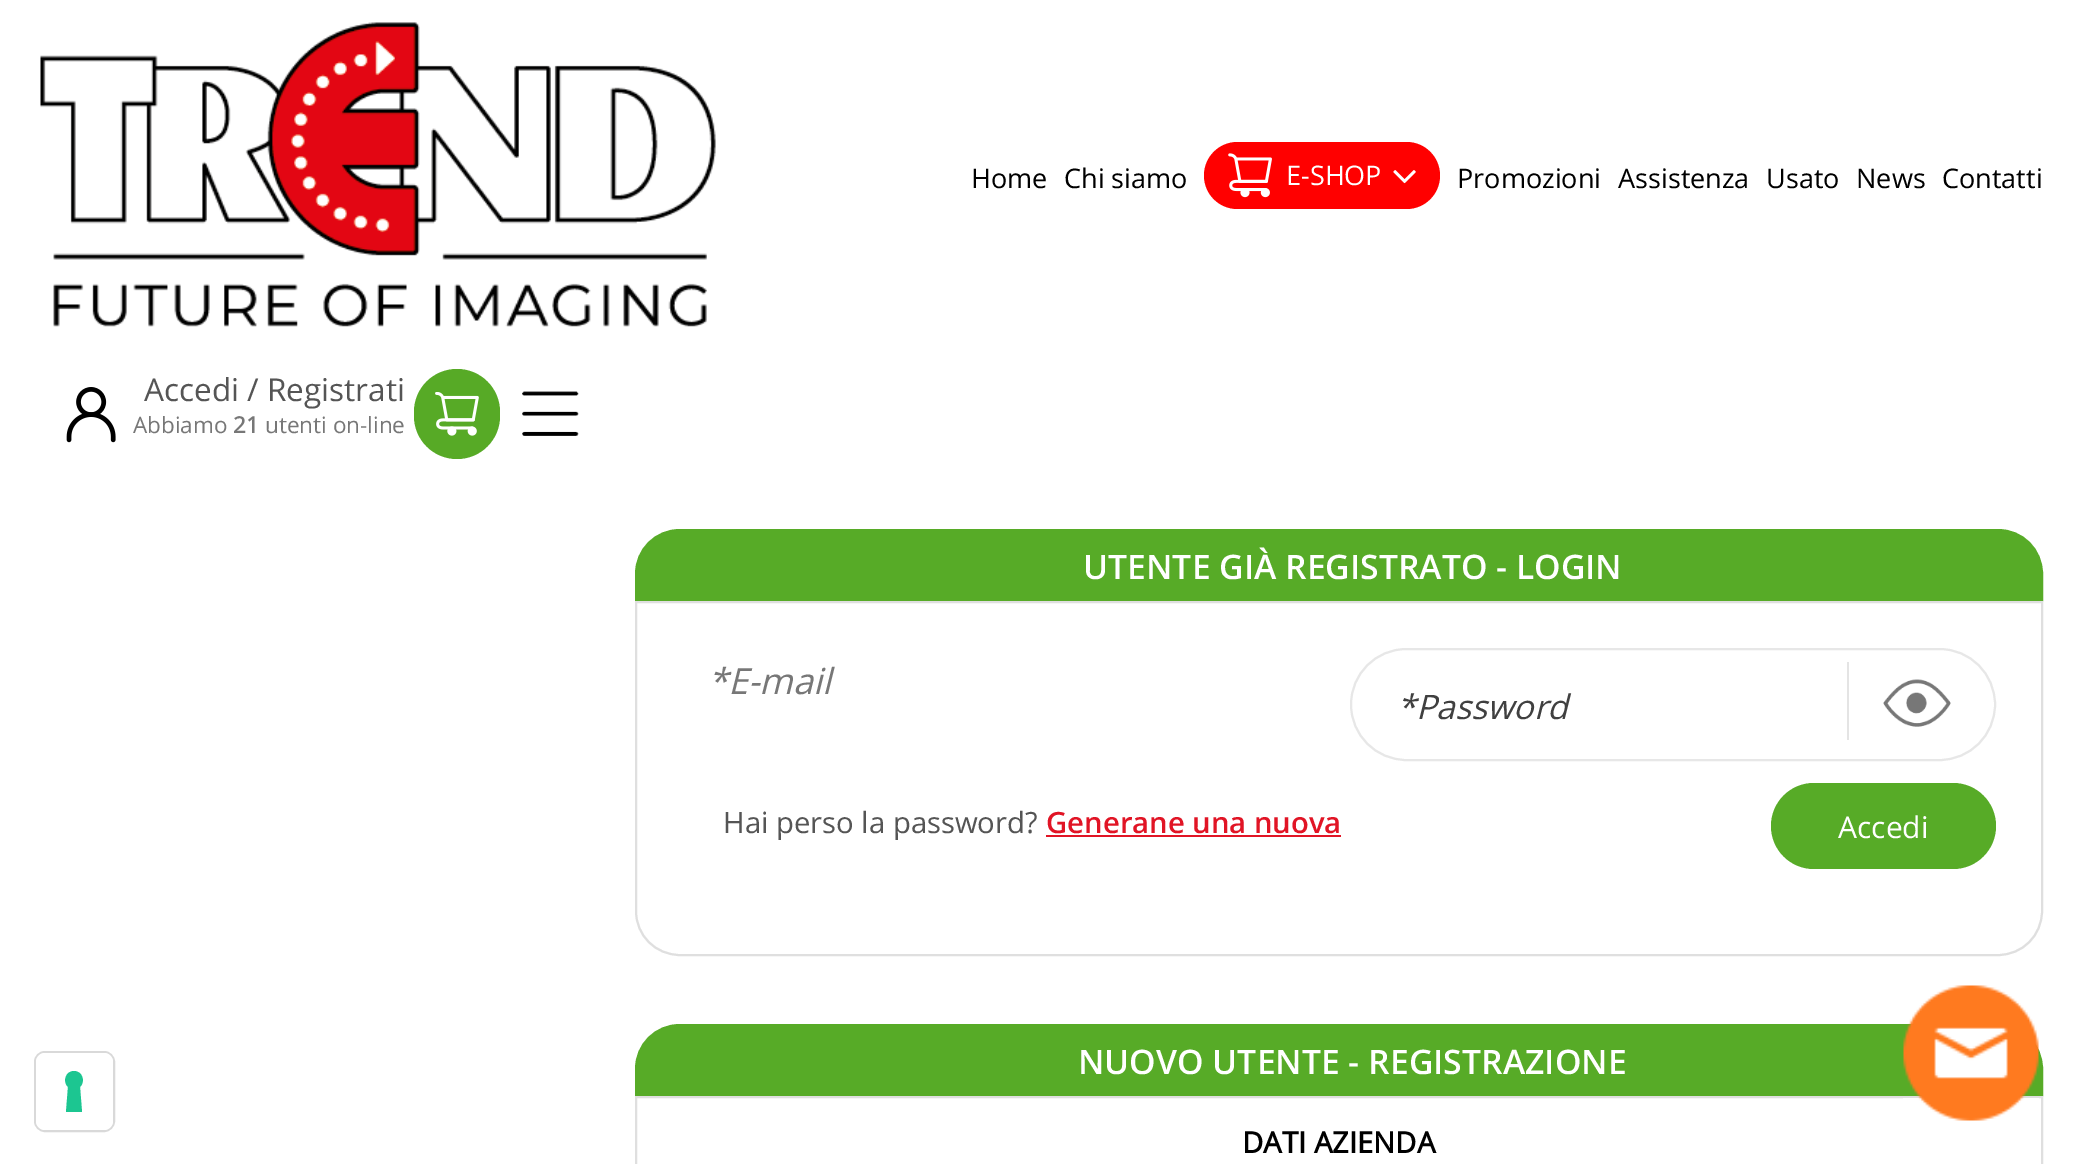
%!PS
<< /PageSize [2083 1164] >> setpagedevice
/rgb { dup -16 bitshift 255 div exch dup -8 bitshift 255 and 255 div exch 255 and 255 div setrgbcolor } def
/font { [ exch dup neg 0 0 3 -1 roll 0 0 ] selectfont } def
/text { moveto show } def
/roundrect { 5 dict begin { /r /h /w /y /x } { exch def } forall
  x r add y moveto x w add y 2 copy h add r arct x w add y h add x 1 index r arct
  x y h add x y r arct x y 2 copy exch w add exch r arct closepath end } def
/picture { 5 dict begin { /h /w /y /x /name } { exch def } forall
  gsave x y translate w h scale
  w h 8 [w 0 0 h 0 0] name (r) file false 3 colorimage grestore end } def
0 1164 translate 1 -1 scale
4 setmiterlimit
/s1 { /OpenSans-Regular 27 font 16#000000 rgb } def
/s2 { /OpenSans-Regular 27 font 16#FFFFFF rgb } def
/s3 { /OpenSans-Regular 31.5 font 16#555555 rgb } def
/s4 { /OpenSans-Regular 22.5 font 16#777777 rgb } def
/s5 { /OpenSans-Bold 22.5 font 16#777777 rgb } def
/s6 { /OpenSans-SemiBold 33.75 font 16#FFFFFF rgb } def
/s7 { /OpenSans-Italic 36 font 16#777777 rgb } def
/s8 { /OpenSans-Italic 33.75 font 16#404040 rgb } def
/s9 { /OpenSans-Regular 30 font 16#FFFFFF rgb } def
/s10 { /OpenSans-Regular 29.25 font 16#555555 rgb } def
/s11 { /OpenSans-SemiBold 29.25 font 16#E11425 rgb } def
/s12 { /OpenSans-Bold 29.25 font 16#000000 rgb } def
16#FFFFFF rgb
0 0 2083 1164 rectfill
(pic1.raw) 40 22 676 305 picture
s1
(Home) 971 188 text
(Chi siamo) 1064 188 text
16#FF0000 rgb
1204 142 236 67 33.5 roundrect fill
(pic2.raw) 1228 153 44 45 picture
s2
(E-SHOP) 1286 185 text
(pic3.raw) 1393 170 23 14 picture
s1
(Promozioni) 1457 188 text
(Assistenza) 1618 188 text
(Usato) 1766 188 text
(News) 1856 188 text
(Contatti) 1942 188 text
(pic4.raw) 66 387 50 56 picture
s3
(Accedi / Registrati) 144 401 text
s4
(Abbiamo) 133 433 text
s5
(21) 233 433 text
s4
(utenti on-line) 265 433 text
16#57AA26 rgb
414 369 86 90 43 roundrect fill
(pic5.raw) 435 392 44 44 picture
(pic6.raw) 522 391 57 45 picture
16#D9D9D9 rgb
2 setlinewidth
35 1052 79 79 10 roundrect stroke
16#FFFFFF rgb
36 1053 77 77 9 roundrect fill
16#1CC691 rgb
74 1071 moveto 82 1071 86 1081 80 1087 curveto 82 1112 lineto 66 1112 lineto 68 1087 lineto 62 1081 66 1071 74 1071 curveto closepath eofill
16#57AB27 rgb
680 530 moveto 1998 530 lineto 2022.5 530 2042 549.5 2042 574 curveto 2042 600 lineto 636 600 lineto 636 574 lineto 636 549.5 655.5 530 680 530 curveto closepath gsave fill grestore
stroke
s6
(UTENTE GIÀ REGISTRATO - LOGIN) 1083 579 text
16#DFDFDF rgb
636 602 moveto 2042 602 lineto 2042 911 lineto 2042 935.5 2022.5 955 1998 955 curveto 680 955 lineto 655.5 955 636 935.5 636 911 curveto closepath stroke
s7
(*E-mail) 708 694 text
16#E7E7E7 rgb
1351 649 644 111 55.5 roundrect stroke
s8
(*Password) 1397 719 text
(pic7.raw) 1883 679 68 48 picture
16#E4E4E4 rgb
1847 662 2 78 rectfill
16#57AB27 rgb
1771 783 225 86 43 roundrect fill
s9
(Accedi) 1838 838 text
s10
(Hai perso la password?) 723 833 text
s11
(Generane una nuova) 1046 833 text
1046 835 295 2 rectfill
16#57AB27 rgb
680 1025 moveto 1998 1025 lineto 2022.5 1025 2042 1044.5 2042 1069 curveto 2042 1095 lineto 636 1095 lineto 636 1069 lineto 636 1044.5 655.5 1025 680 1025 curveto closepath gsave fill grestore
stroke
s6
(NUOVO UTENTE - REGISTRAZIONE) 1078 1074 text
16#DFDFDF rgb
636 1097 1406 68 rectstroke
s12
(DATI AZIENDA) 1242 1153 text
(pic8.raw) 1903 985 136 136 picture
showpage
